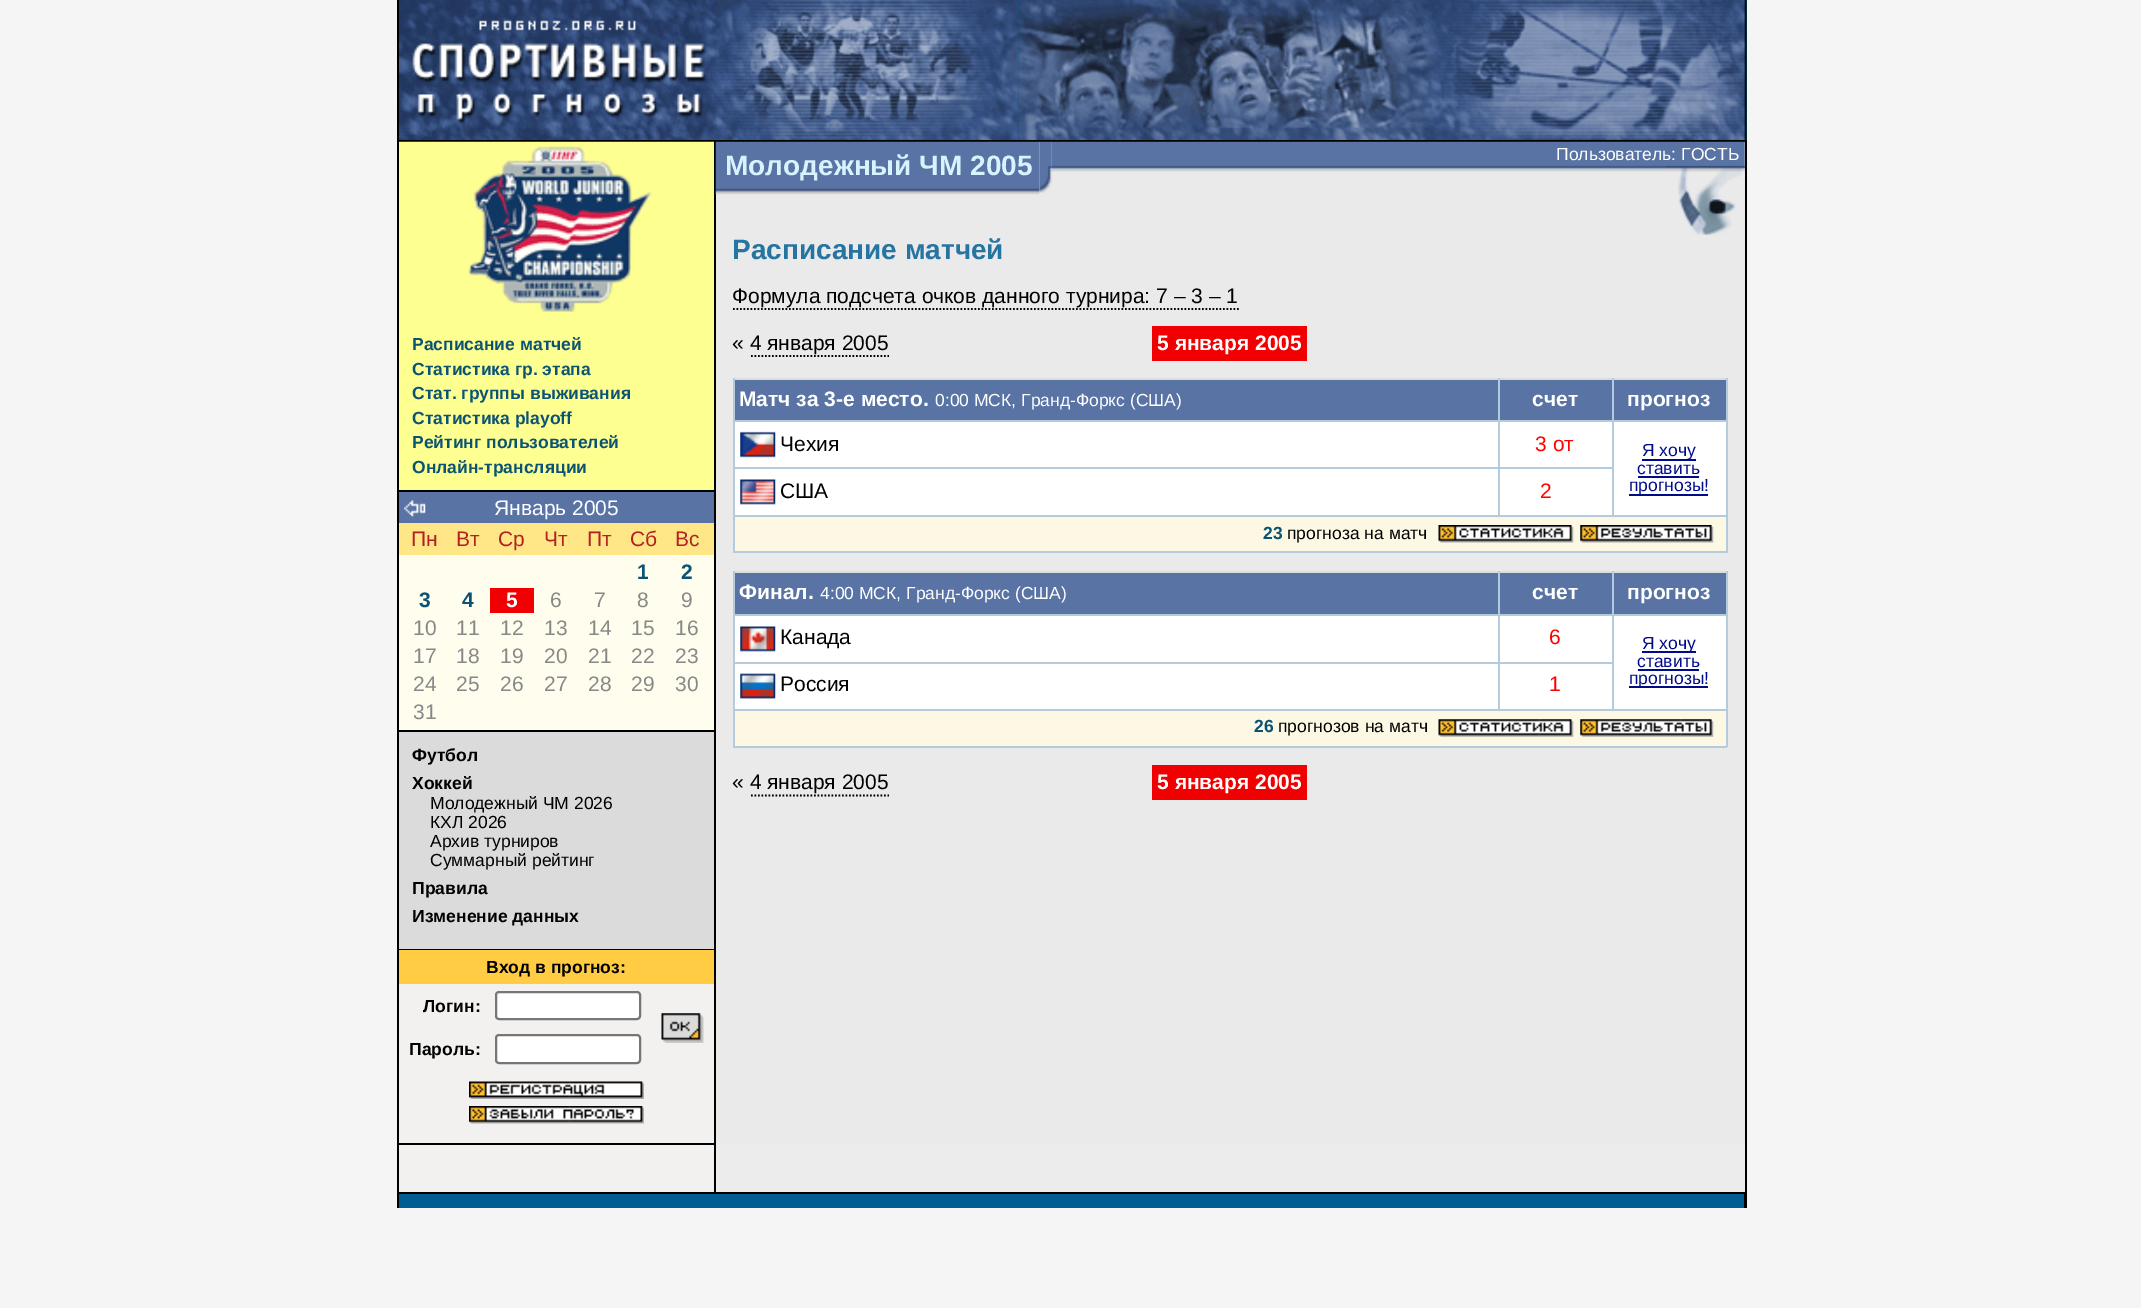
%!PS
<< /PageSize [2141 1308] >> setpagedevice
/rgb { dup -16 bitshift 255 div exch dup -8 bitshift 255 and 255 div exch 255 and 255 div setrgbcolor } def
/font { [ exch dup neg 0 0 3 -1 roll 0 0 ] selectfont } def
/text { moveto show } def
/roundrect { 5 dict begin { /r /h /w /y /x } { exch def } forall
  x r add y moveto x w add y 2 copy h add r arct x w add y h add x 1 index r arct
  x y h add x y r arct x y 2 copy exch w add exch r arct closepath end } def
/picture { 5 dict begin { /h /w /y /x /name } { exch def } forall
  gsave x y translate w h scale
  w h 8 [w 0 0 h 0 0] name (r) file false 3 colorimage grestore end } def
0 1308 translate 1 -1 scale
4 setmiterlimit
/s1 { /LiberationSans-Bold 17.5 font 16#0A5374 rgb } def
/s2 { /LiberationSans-Regular 21 font 16#FFFFFF rgb } def
/s3 { /LiberationSans-Regular 21 font 16#B22222 rgb } def
/s4 { /LiberationSans-Bold 21 font 16#0A5374 rgb } def
/s5 { /LiberationSans-Bold 21 font 16#FFFFFF rgb } def
/s6 { /LiberationSans-Regular 21 font 16#888888 rgb } def
/s7 { /LiberationSans-Bold 17.5 font 16#000000 rgb } def
/s8 { /LiberationSans-Regular 17.5 font 16#000000 rgb } def
/s9 { /LiberationSans-Bold 28 font 16#D9F2FF rgb } def
/s10 { /LiberationSans-Regular 17.5 font 16#FFFFFF rgb } def
/s11 { /LiberationSans-Bold 28 font 16#2574A1 rgb } def
/s12 { /LiberationSans-Regular 21 font 16#000000 rgb } def
/s13 { /LiberationSans-Regular 21 font 16#FF0000 rgb } def
/s14 { /LiberationSans-Regular 17.5 font 16#000B89 rgb } def
16#F5F5F5 rgb
0 0 2141 1308 rectfill
16#005780 rgb
715 0 1032 140 rectfill
16#000000 rgb
397 0 2 140 rectfill
(pic1.raw) 399 0 317 140 picture
(pic2.raw) 715 0 304 140 picture
(pic3.raw) 1018 0 410 140 picture
(pic4.raw) 1428 0 319 140 picture
397 140 1350 2 rectfill
397 142 2 1066 rectfill
16#F2F1F0 rgb
399 984 315 159 rectfill
16#FEFF91 rgb
399 312 315 178 rectfill
(pic5.raw) 399 141 315 171 picture
s1
(Расписание матчей) 412 350 text
(Статистика гр. этапа) 412 375 text
(Стат. группы выживания) 412 399 text
(Статистика playoff) 412 424 text
(Рейтинг пользователей) 412 448 text
(Онлайн-трансляции) 412 473 text
16#000000 rgb
399 490 315 2 rectfill
16#5873A4 rgb
399 492 315 31 rectfill
(pic6.raw) 404 500 22 17 picture
s2
(Январь 2005) 494 515 text
16#FFE686 rgb
399 523 315 32 rectfill
s3
(Пн) 411 546 text
(Вт) 456 546 text
(Ср) 498 546 text
(Чт) 544 546 text
(Пт) 587 546 text
(Сб) 630 546 text
(Вс) 675 546 text
16#FFFEEE rgb
399 555 315 175 rectfill
s4
(1) 637 579 text
(2) 681 579 text
(3) 419 607 text
(4) 462 607 text
16#F00000 rgb
490 588 44 25 rectfill
s5
(5) 506 607 text
s6
(6) 550 607 text
(7) 594 607 text
(8) 637 607 text
(9) 681 607 text
(10) 413 635 text
(11) 456 635 text
(12) 500 635 text
(13) 544 635 text
(14) 588 635 text
(15) 631 635 text
(16) 675 635 text
(17) 413 663 text
(18) 456 663 text
(19) 500 663 text
(20) 544 663 text
(21) 588 663 text
(22) 631 663 text
(23) 675 663 text
(24) 413 691 text
(25) 456 691 text
(26) 500 691 text
(27) 544 691 text
(28) 588 691 text
(29) 631 691 text
(30) 675 691 text
(31) 413 719 text
16#000000 rgb
399 730 315 2 rectfill
16#DBDBDB rgb
399 732 315 217 rectfill
s7
(Футбол) 412 761 text
(Хоккей) 412 789 text
s8
(Молодежный ЧМ 2026) 430 809 text
(КХЛ 2026) 430 828 text
(Архив турниров) 430 847 text
(Суммарный рейтинг) 430 866 text
s7
(Правила) 412 894 text
(Изменение данных) 412 922 text
399 949 315 1 rectfill
16#FFCC44 rgb
399 950 315 34 rectfill
s7
(Вход в прогноз:) 486 973 text
(Логин:) 423 1012 text
16#FFFFFF rgb
496 992 144 27 3 roundrect gsave fill grestore
16#767676 rgb
2 setlinewidth
stroke
(pic7.raw) 661 1013 43 30 picture
s7
(Пароль:) 409 1055 text
16#FFFFFF rgb
496 1035 144 28 3 roundrect gsave fill grestore
16#767676 rgb
stroke
(pic8.raw) 469 1081 175 18 picture
(pic9.raw) 469 1106 175 18 picture
16#000000 rgb
399 1143 315 2 rectfill
714 142 2 1050 rectfill
16#EAEAEA rgb
716 142 1029 1003 rectfill
(pic10.raw) 715 141 325 54 picture
s9
(Молодежный ЧМ 2005) 725 175 text
(pic12.raw) 1051 141 694 31 picture
(pic11.raw) 1039 141 13 52 picture
s10
(Пользователь: ГОСТЬ) 1556 160 text
(pic13.raw) 1666 166 79 69 picture
s11
(Расписание матчей) 732 259 text
s12
(Формула подсчета очков данного турнира: 7 – 3 – 1) 732 303 text
1.8 setlinewidth
[1.75 1.75] 0 setdash
733 309 moveto 1239 309 lineto stroke
(« 4 января 2005) 732 350 text
751 356 moveto 889 356 lineto stroke
16#F00000 rgb
1152 326 155 35 rectfill
s5
(5 января 2005) 1157 350 text
16#DDDDDD rgb
733 378 994 2 rectfill
16#5873A4 rgb
735 380 763 40 rectfill
s5
(Матч за 3-е место.) 739 406 text
s10
(0:00 МСК, Гранд-Форкс \(США\)) 935 406 text
16#5873A4 rgb
1500 380 112 40 rectfill
16#B4CADD rgb
1612 420 115 2 rectfill
16#FFFFFF rgb
735 469 991 46 rectfill
16#B4CADD rgb
1498 467 116 2 rectfill
733 515 994 2 rectfill
1612 420 2 96 rectfill
1498 420 116 2 rectfill
16#FFFFFF rgb
735 422 877 45 rectfill
16#B4CADD rgb
1498 467 2 49 rectfill
733 467 767 2 rectfill
1498 420 2 49 rectfill
733 420 767 2 rectfill
1498 378 2 44 rectfill
s5
(счет) 1532 406 text
16#5873A4 rgb
1614 380 112 40 rectfill
16#B4CADD rgb
1612 378 2 44 rectfill
s5
(прогноз) 1627 406 text
16#B4CADD rgb
1726 515 2 38 rectfill
733 551 994 2 rectfill
733 515 2 38 rectfill
733 467 2 49 rectfill
733 378 2 91 rectfill
(pic14.raw) 740 431 36 27 picture
s12
(Чехия) 780 451 text
s13
(3 от) 1535 451 text
16#FFFFFF rgb
1614 422 112 47 rectfill
16#B4CADD rgb
1726 378 2 138 rectfill
16#000B89 rgb
1642 459 54 2 rectfill
s14
(Я хочу) 1642 456 text
(ставить) 1637 474 text
1638 476 61 2 rectfill
1629 494 79 2 rectfill
(прогнозы!) 1629 491 text
(pic15.raw) 740 479 36 26 picture
s12
(США) 780 498 text
s13
(2) 1540 498 text
16#FCF8E3 rgb
735 517 991 34 rectfill
s1
(23) 1263 539 text
s8
(прогноза на матч) 1287 539 text
(pic16.raw) 1438 525 136 18 picture
(pic17.raw) 1580 525 134 18 picture
16#DDDDDD rgb
733 571 994 2 rectfill
16#5873A4 rgb
735 573 763 41 rectfill
s5
(Финал.) 739 599 text
s10
(4:00 МСК, Гранд-Форкс \(США\)) 820 599 text
16#5873A4 rgb
1500 573 112 41 rectfill
16#B4CADD rgb
1612 614 115 2 rectfill
16#FFFFFF rgb
735 662 991 47 rectfill
16#B4CADD rgb
1498 662 116 2 rectfill
733 709 994 2 rectfill
1612 614 2 97 rectfill
1498 614 116 2 rectfill
16#FFFFFF rgb
735 616 877 46 rectfill
16#B4CADD rgb
1498 662 2 49 rectfill
733 662 767 2 rectfill
1498 614 2 49 rectfill
733 614 767 2 rectfill
1498 571 2 45 rectfill
s5
(счет) 1532 599 text
16#5873A4 rgb
1614 573 112 41 rectfill
16#B4CADD rgb
1612 571 2 45 rectfill
s5
(прогноз) 1627 599 text
16#B4CADD rgb
1726 709 2 38 rectfill
733 746 994 2 rectfill
733 709 2 38 rectfill
733 662 2 49 rectfill
733 571 2 92 rectfill
(pic18.raw) 740 626 36 26 picture
s12
(Канада) 780 644 text
s13
(6) 1549 644 text
16#FFFFFF rgb
1614 616 112 46 rectfill
16#B4CADD rgb
1726 571 2 140 rectfill
16#000B89 rgb
1642 651 54 2 rectfill
s14
(Я хочу) 1642 649 text
(ставить) 1637 667 text
1638 669 61 2 rectfill
1629 686 79 2 rectfill
(прогнозы!) 1629 684 text
(pic19.raw) 740 673 36 26 picture
s12
(Россия) 780 691 text
s13
(1) 1549 691 text
16#FCF8E3 rgb
735 711 991 35 rectfill
s1
(26) 1254 732 text
s8
(прогнозов на матч) 1278 732 text
(pic20.raw) 1438 719 136 18 picture
(pic21.raw) 1580 719 134 18 picture
s12
(« 4 января 2005) 732 789 text
751 795.5 moveto 889 795.5 lineto stroke
16#F00000 rgb
1152 765 155 35 rectfill
s5
(5 января 2005) 1157 789 text
16#000000 rgb
1745 142 2 1050 rectfill
16#F2F1F0 rgb
399 1145 315 47 rectfill
16#ECECEC rgb
716 1145 1029 47 rectfill
16#000000 rgb
399 1192 1348 2 rectfill
16#005D92 rgb
399 1194 1345 14 rectfill
16#000000 rgb
1744 1194 3 14 rectfill
showpage
